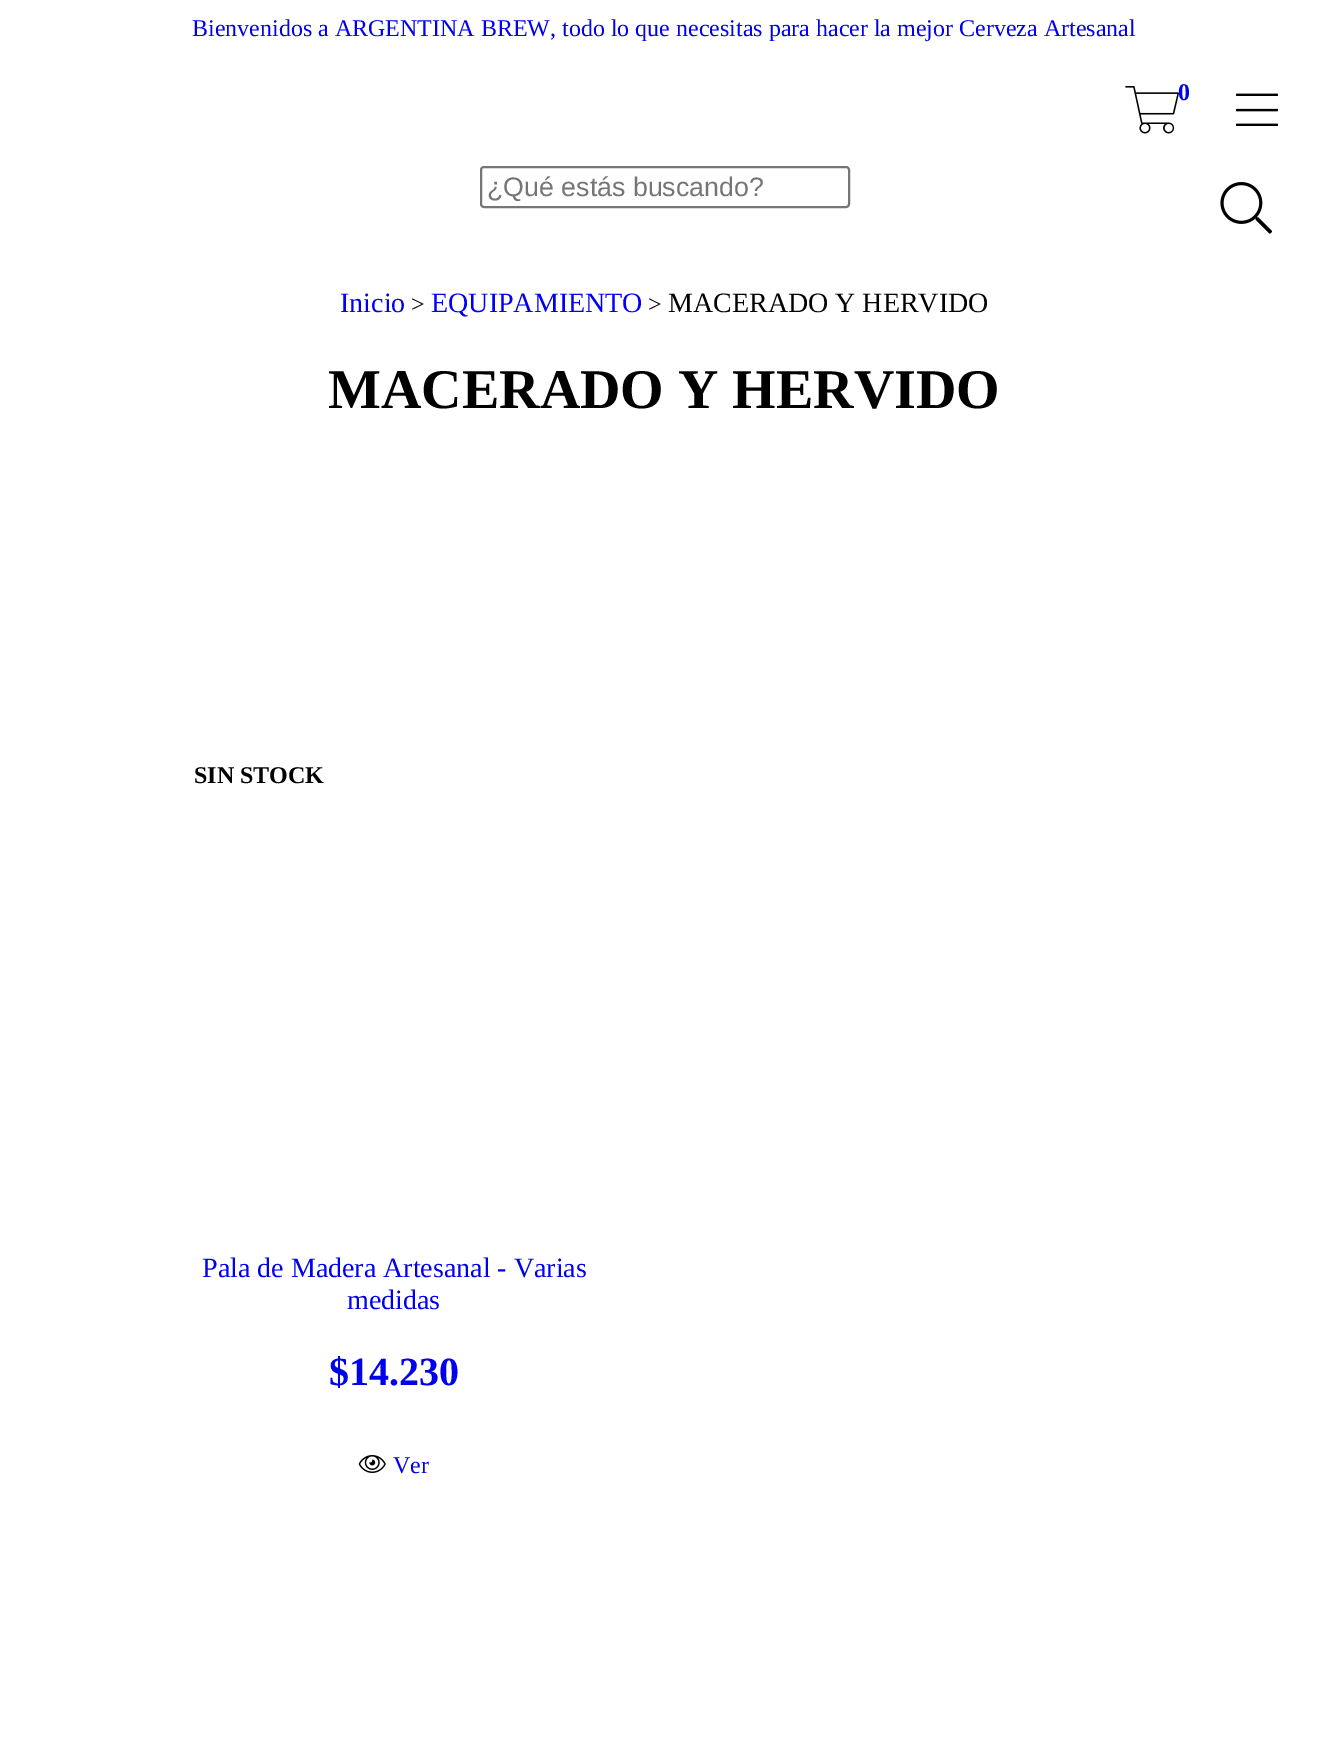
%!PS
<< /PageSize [1328 1743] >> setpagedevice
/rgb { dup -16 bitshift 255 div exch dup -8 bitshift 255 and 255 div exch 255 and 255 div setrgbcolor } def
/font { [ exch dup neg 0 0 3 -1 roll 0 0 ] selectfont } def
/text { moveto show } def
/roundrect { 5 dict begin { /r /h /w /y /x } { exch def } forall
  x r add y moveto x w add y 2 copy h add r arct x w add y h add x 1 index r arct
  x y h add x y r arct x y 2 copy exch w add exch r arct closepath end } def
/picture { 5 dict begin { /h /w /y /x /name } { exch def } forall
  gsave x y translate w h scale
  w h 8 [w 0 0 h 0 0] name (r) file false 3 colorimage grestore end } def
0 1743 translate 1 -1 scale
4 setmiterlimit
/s1 { /LiberationSerif-Regular 24 font 16#0000EE rgb } def
/s2 { /LiberationSerif-Bold 24 font 16#0000EE rgb } def
/s3 { /LiberationSans-Regular 26.75 font 16#757575 rgb } def
/s4 { /LiberationSerif-Regular 28 font 16#0000EE rgb } def
/s5 { /LiberationSerif-Regular 24 font 16#000000 rgb } def
/s6 { /LiberationSerif-Regular 28 font 16#000000 rgb } def
/s7 { /LiberationSerif-Bold 56 font 16#000000 rgb } def
/s8 { /LiberationSerif-Bold 24 font 16#000000 rgb } def
/s9 { /LiberationSerif-Bold 40 font 16#0000EE rgb } def
16#FFFFFF rgb
0 0 1328 1743 rectfill
s1
(Bienvenidos a ARGENTINA BREW, todo lo que necesitas para hacer la mejor Cerveza Artesanal) 192 36 text
(pic1.raw) 1125 86 54 48 picture
s2
(0) 1178 100 text
(pic2.raw) 1236 93 42 33 picture
16#767676 rgb
2 setlinewidth
481 167 368 40 3 roundrect stroke
s3
(¿Qué estás buscando?) 487 196 text
(pic3.raw) 1220 182 52 52 picture
s4
(Inicio) 340 312 text
s5
(>) 411 312 text
s4
(EQUIPAMIENTO) 431 312 text
s5
(>) 648 312 text
s6
(MACERADO Y HERVIDO) 668 312 text
s7
(MACERADO Y HERVIDO) 328 408 text
s8
(SIN STOCK) 194 783 text
s4
(Pala de Madera Artesanal - Varias) 202 1277 text
(medidas) 347 1309 text
s9
($14.230) 329 1385 text
(pic4.raw) 358 1455 28 18 picture
s1
(Ver) 393 1473 text
showpage
